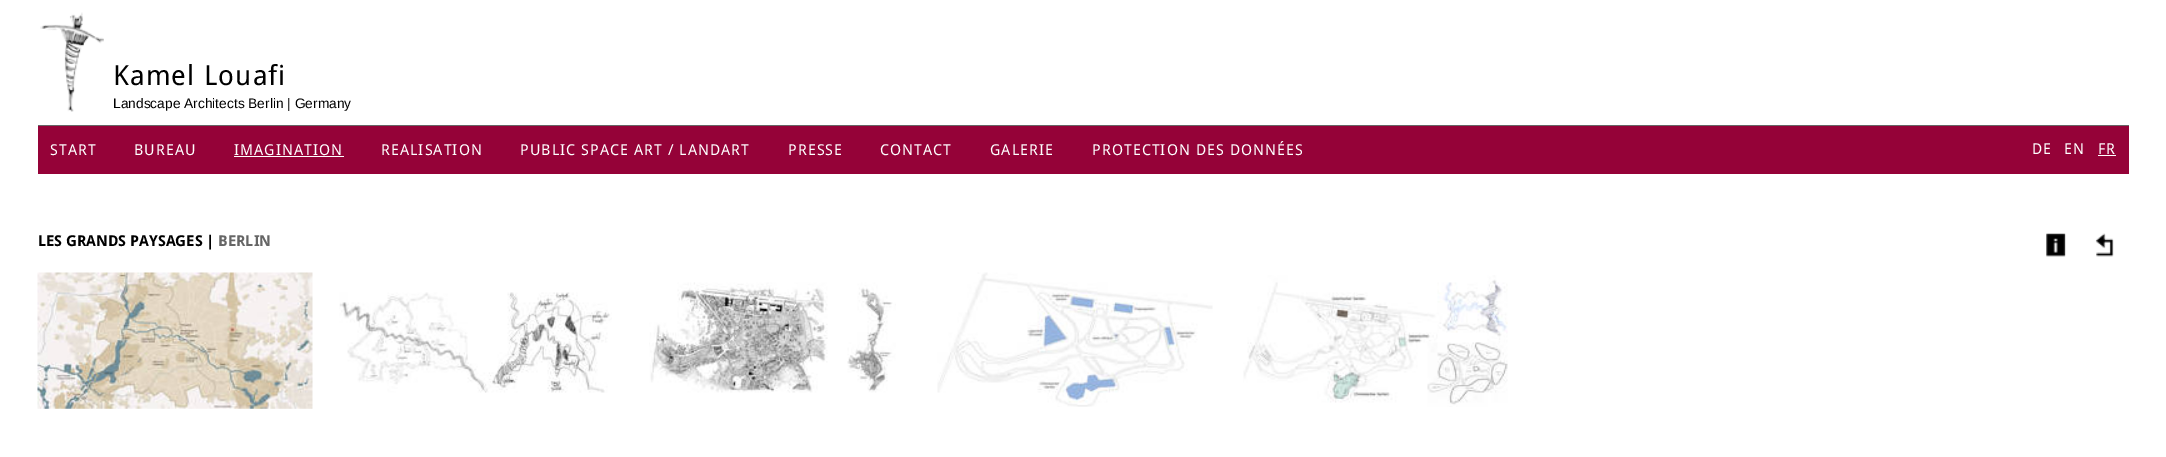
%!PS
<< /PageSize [2166 457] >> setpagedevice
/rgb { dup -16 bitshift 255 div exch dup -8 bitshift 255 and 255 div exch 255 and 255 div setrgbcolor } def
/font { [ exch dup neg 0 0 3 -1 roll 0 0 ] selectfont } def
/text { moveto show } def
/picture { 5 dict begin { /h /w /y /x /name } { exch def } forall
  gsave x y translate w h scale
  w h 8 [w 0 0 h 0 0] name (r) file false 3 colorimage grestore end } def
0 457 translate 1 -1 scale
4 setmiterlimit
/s1 { /LiberationSans-Regular 13.75 font 16#000000 rgb } def
/s2 { /DroidSans-Bold 15 font 16#000000 rgb } def
/s3 { /DroidSans-Bold 15 font 16#666666 rgb } def
16#FFFFFF rgb
0 0 2166 457 rectfill
(pic1.raw) 40 12 64 100 picture
/DroidSans-Regular 27.5 font
16#000000 rgb
113 85 moveto 1.1 0 (Kamel Louafi) ashow
s1
(Landscape Architects Berlin | Germany) 113 108 text
16#950238 rgb
38 126 2091 48 rectfill
16#666666 rgb
38 125 2091 1 rectfill
/DroidSans-Regular 15 font
16#FFFFFF rgb
50 155 moveto 1.05 0 (START) ashow
134 155 moveto 1.05 0 (BUREAU) ashow
234 155 moveto 1.05 0 (IMAGINATION) ashow
234 156 110 1 rectfill
381 155 moveto 1.05 0 (REALISATION) ashow
520 155 moveto 1.05 0 (PUBLIC SPACE ART / LANDART) ashow
788 155 moveto 1.05 0 (PRESSE) ashow
880 155 moveto 1.05 0 (CONTACT) ashow
990 155 moveto 1.05 0 (GALERIE) ashow
1092 155 moveto 1.05 0 (PROTECTION DES DONNÉES) ashow
2032 154 moveto 1.05 0 (DE) ashow
2064 154 moveto 1.05 0 (EN) ashow
2098 154 moveto 1.05 0 (FR) ashow
2098 155 18 1 rectfill
s2
(LES GRANDS PAYSAGES |) 38 246 text
s3
(BERLIN) 218 246 text
(pic2.raw) 2046 233 20 24 picture
(pic3.raw) 2095 233 19 24 picture
(pic4.raw) 37 272 276 137 picture
(pic5.raw) 339 292 273 101 picture
(pic6.raw) 649 282 247 111 picture
(pic7.raw) 937 272 276 135 picture
(pic8.raw) 1243 275 265 132 picture
showpage
